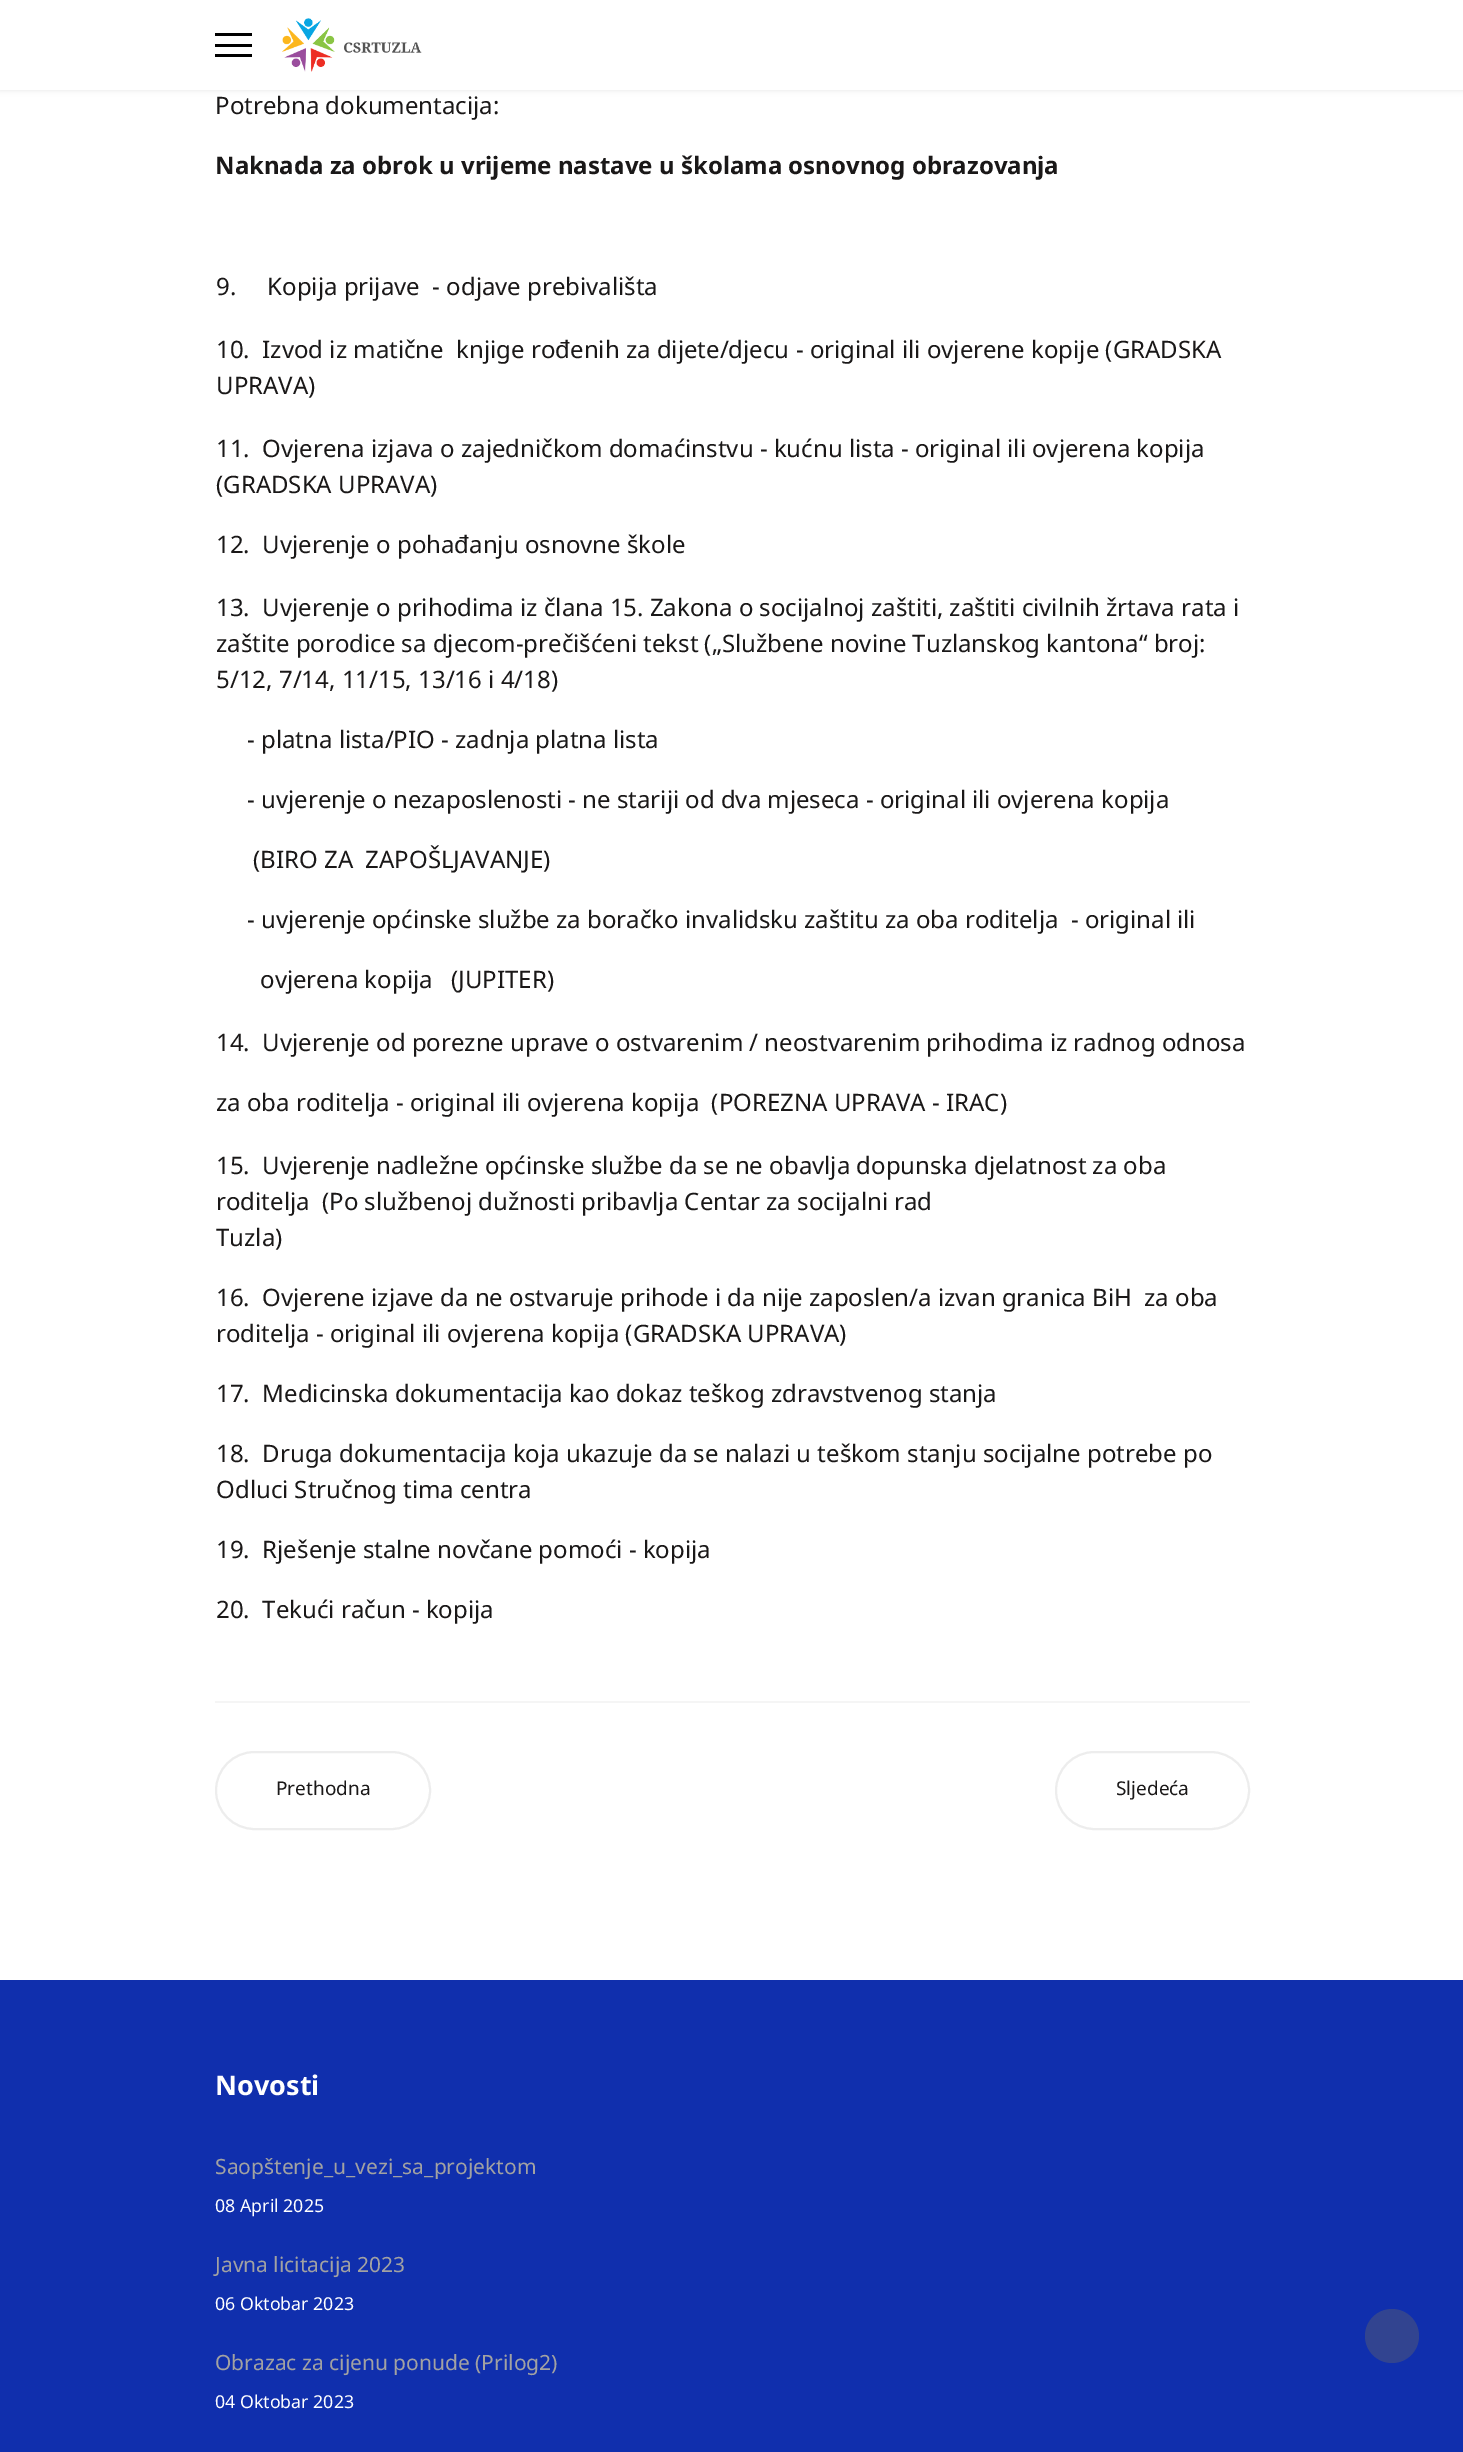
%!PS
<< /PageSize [1463 2452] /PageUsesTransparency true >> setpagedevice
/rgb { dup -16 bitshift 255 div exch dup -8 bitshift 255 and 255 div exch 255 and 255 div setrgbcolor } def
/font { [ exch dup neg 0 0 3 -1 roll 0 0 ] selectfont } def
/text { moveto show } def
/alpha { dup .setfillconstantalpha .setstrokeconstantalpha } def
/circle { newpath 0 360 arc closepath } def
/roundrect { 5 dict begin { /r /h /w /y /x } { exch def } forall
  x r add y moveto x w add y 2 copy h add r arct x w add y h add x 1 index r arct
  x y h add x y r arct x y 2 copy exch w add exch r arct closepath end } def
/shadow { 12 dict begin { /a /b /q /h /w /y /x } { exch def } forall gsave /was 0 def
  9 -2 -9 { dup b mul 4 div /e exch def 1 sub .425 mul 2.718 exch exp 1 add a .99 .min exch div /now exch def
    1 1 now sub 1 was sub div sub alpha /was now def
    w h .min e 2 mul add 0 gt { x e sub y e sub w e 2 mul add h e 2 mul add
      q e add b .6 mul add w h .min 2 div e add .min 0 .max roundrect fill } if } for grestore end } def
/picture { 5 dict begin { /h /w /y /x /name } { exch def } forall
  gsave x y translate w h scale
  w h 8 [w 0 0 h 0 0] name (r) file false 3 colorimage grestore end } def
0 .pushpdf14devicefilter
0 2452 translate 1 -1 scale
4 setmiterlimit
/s1 { /NotoSans-Regular 24 font 16#1A1818 rgb } def
/s2 { /NotoSans-Bold 24 font 16#1A1818 rgb } def
/s3 { /NotoSans-Regular 19 font 16#1A1818 rgb } def
/s4 { /NotoSans-Bold 27 font 16#FFFFFF rgb } def
/s5 { /NotoSans-Regular 21 font 16#A2A2A2 rgb } def
/s6 { /NotoSans-Regular 17.75 font 16#FFFFFF rgb } def
16#FFFFFF rgb
0 0 1463 2452 rectfill
16#000000 rgb
0 0 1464 90 0 3 0.1 shadow
16#FFFFFF rgb
0 0 1463 90 rectfill
16#000000 rgb
215 33 37 3 rectfill
215 44 37 3 rectfill
215 54 37 3 rectfill
(pic1.raw) 282 18 140 54 picture
s1
(Potrebna dokumentacija:) 215 114 text
s2
(Naknada za obrok u vrijeme nastave u školama osnovnog obrazovanja) 215 174 text
s1
(9.     Kopija prijave  - odjave prebivališta) 216 295 text
(10.  Izvod iz matične  knjige rođenih za dijete/djecu - original ili ovjerene kopije \(GRADSKA) 216 358 text
(UPRAVA\)) 216 394 text
(11.  Ovjerena izjava o zajedničkom domaćinstvu - kućnu lista - original ili ovjerena kopija) 216 457 text
(\(GRADSKA UPRAVA\)) 216 493 text
(12.  Uvjerenje o pohađanju osnovne škole) 216 553 text
(13.  Uvjerenje o prihodima iz člana 15. Zakona o socijalnoj zaštiti, zaštiti civilnih žrtava rata i) 216 616 text
(zaštite porodice sa djecom-prečišćeni tekst \(„Službene novine Tuzlanskog kantona“ broj:) 216 652 text
(5/12, 7/14, 11/15, 13/16 i 4/18\)) 216 688 text
(- platna lista/PIO - zadnja platna lista) 247 748 text
(- uvjerenje o nezaposlenosti - ne stariji od dva mjeseca - original ili ovjerena kopija) 247 808 text
(\(BIRO ZA  ZAPOŠLJAVANJE\)) 253 868 text
(- uvjerenje općinske službe za boračko invalidsku zaštitu za oba roditelja  - original ili) 247 928 text
(ovjerena kopija   \(JUPITER\)) 260 988 text
(14.  Uvjerenje od porezne uprave o ostvarenim / neostvarenim prihodima iz radnog odnosa) 216 1051 text
(za oba roditelja - original ili ovjerena kopija  \(POREZNA UPRAVA - IRAC\)) 216 1111 text
(15.  Uvjerenje nadležne općinske službe da se ne obavlja dopunska djelatnost za oba) 216 1174 text
(roditelja  \(Po službenoj dužnosti pribavlja Centar za socijalni rad) 216 1210 text
(Tuzla\)) 216 1246 text
(16.  Ovjerene izjave da ne ostvaruje prihode i da nije zaposlen/a izvan granica BiH  za oba) 216 1306 text
(roditelja - original ili ovjerena kopija \(GRADSKA UPRAVA\)) 216 1342 text
(17.  Medicinska dokumentacija kao dokaz teškog zdravstvenog stanja) 216 1402 text
(18.  Druga dokumentacija koja ukazuje da se nalazi u teškom stanju socijalne potrebe po) 216 1462 text
(Odluci Stručnog tima centra) 216 1498 text
(19.  Rješenje stalne novčane pomoći - kopija) 216 1558 text
(20.  Tekući račun - kopija) 216 1618 text
16#F5F5F5 rgb
215 1701 1035 2 rectfill
16#EDEDED rgb
2 setlinewidth
216 1752 214 77 38.5 roundrect stroke
s3
(Prethodna) 276 1795 text
16#EDEDED rgb
1056 1752 193 77 38.5 roundrect stroke
s3
(Sljedeća) 1116 1795 text
16#102FAD rgb
0 1980 1463 472 rectfill
s4
(Novosti) 215 2095 text
s5
(Saopštenje_u_vezi_sa_projektom) 215 2174 text
s6
(08 April 2025) 215 2212 text
s5
(Javna licitacija 2023) 215 2272 text
s6
(06 Oktobar 2023) 215 2310 text
s5
(Obrazac za cijenu ponude \(Prilog2\)) 215 2370 text
s6
(04 Oktobar 2023) 215 2408 text
16#324490 rgb
1392 2336 27 circle fill
.poppdf14devicefilter showpage
